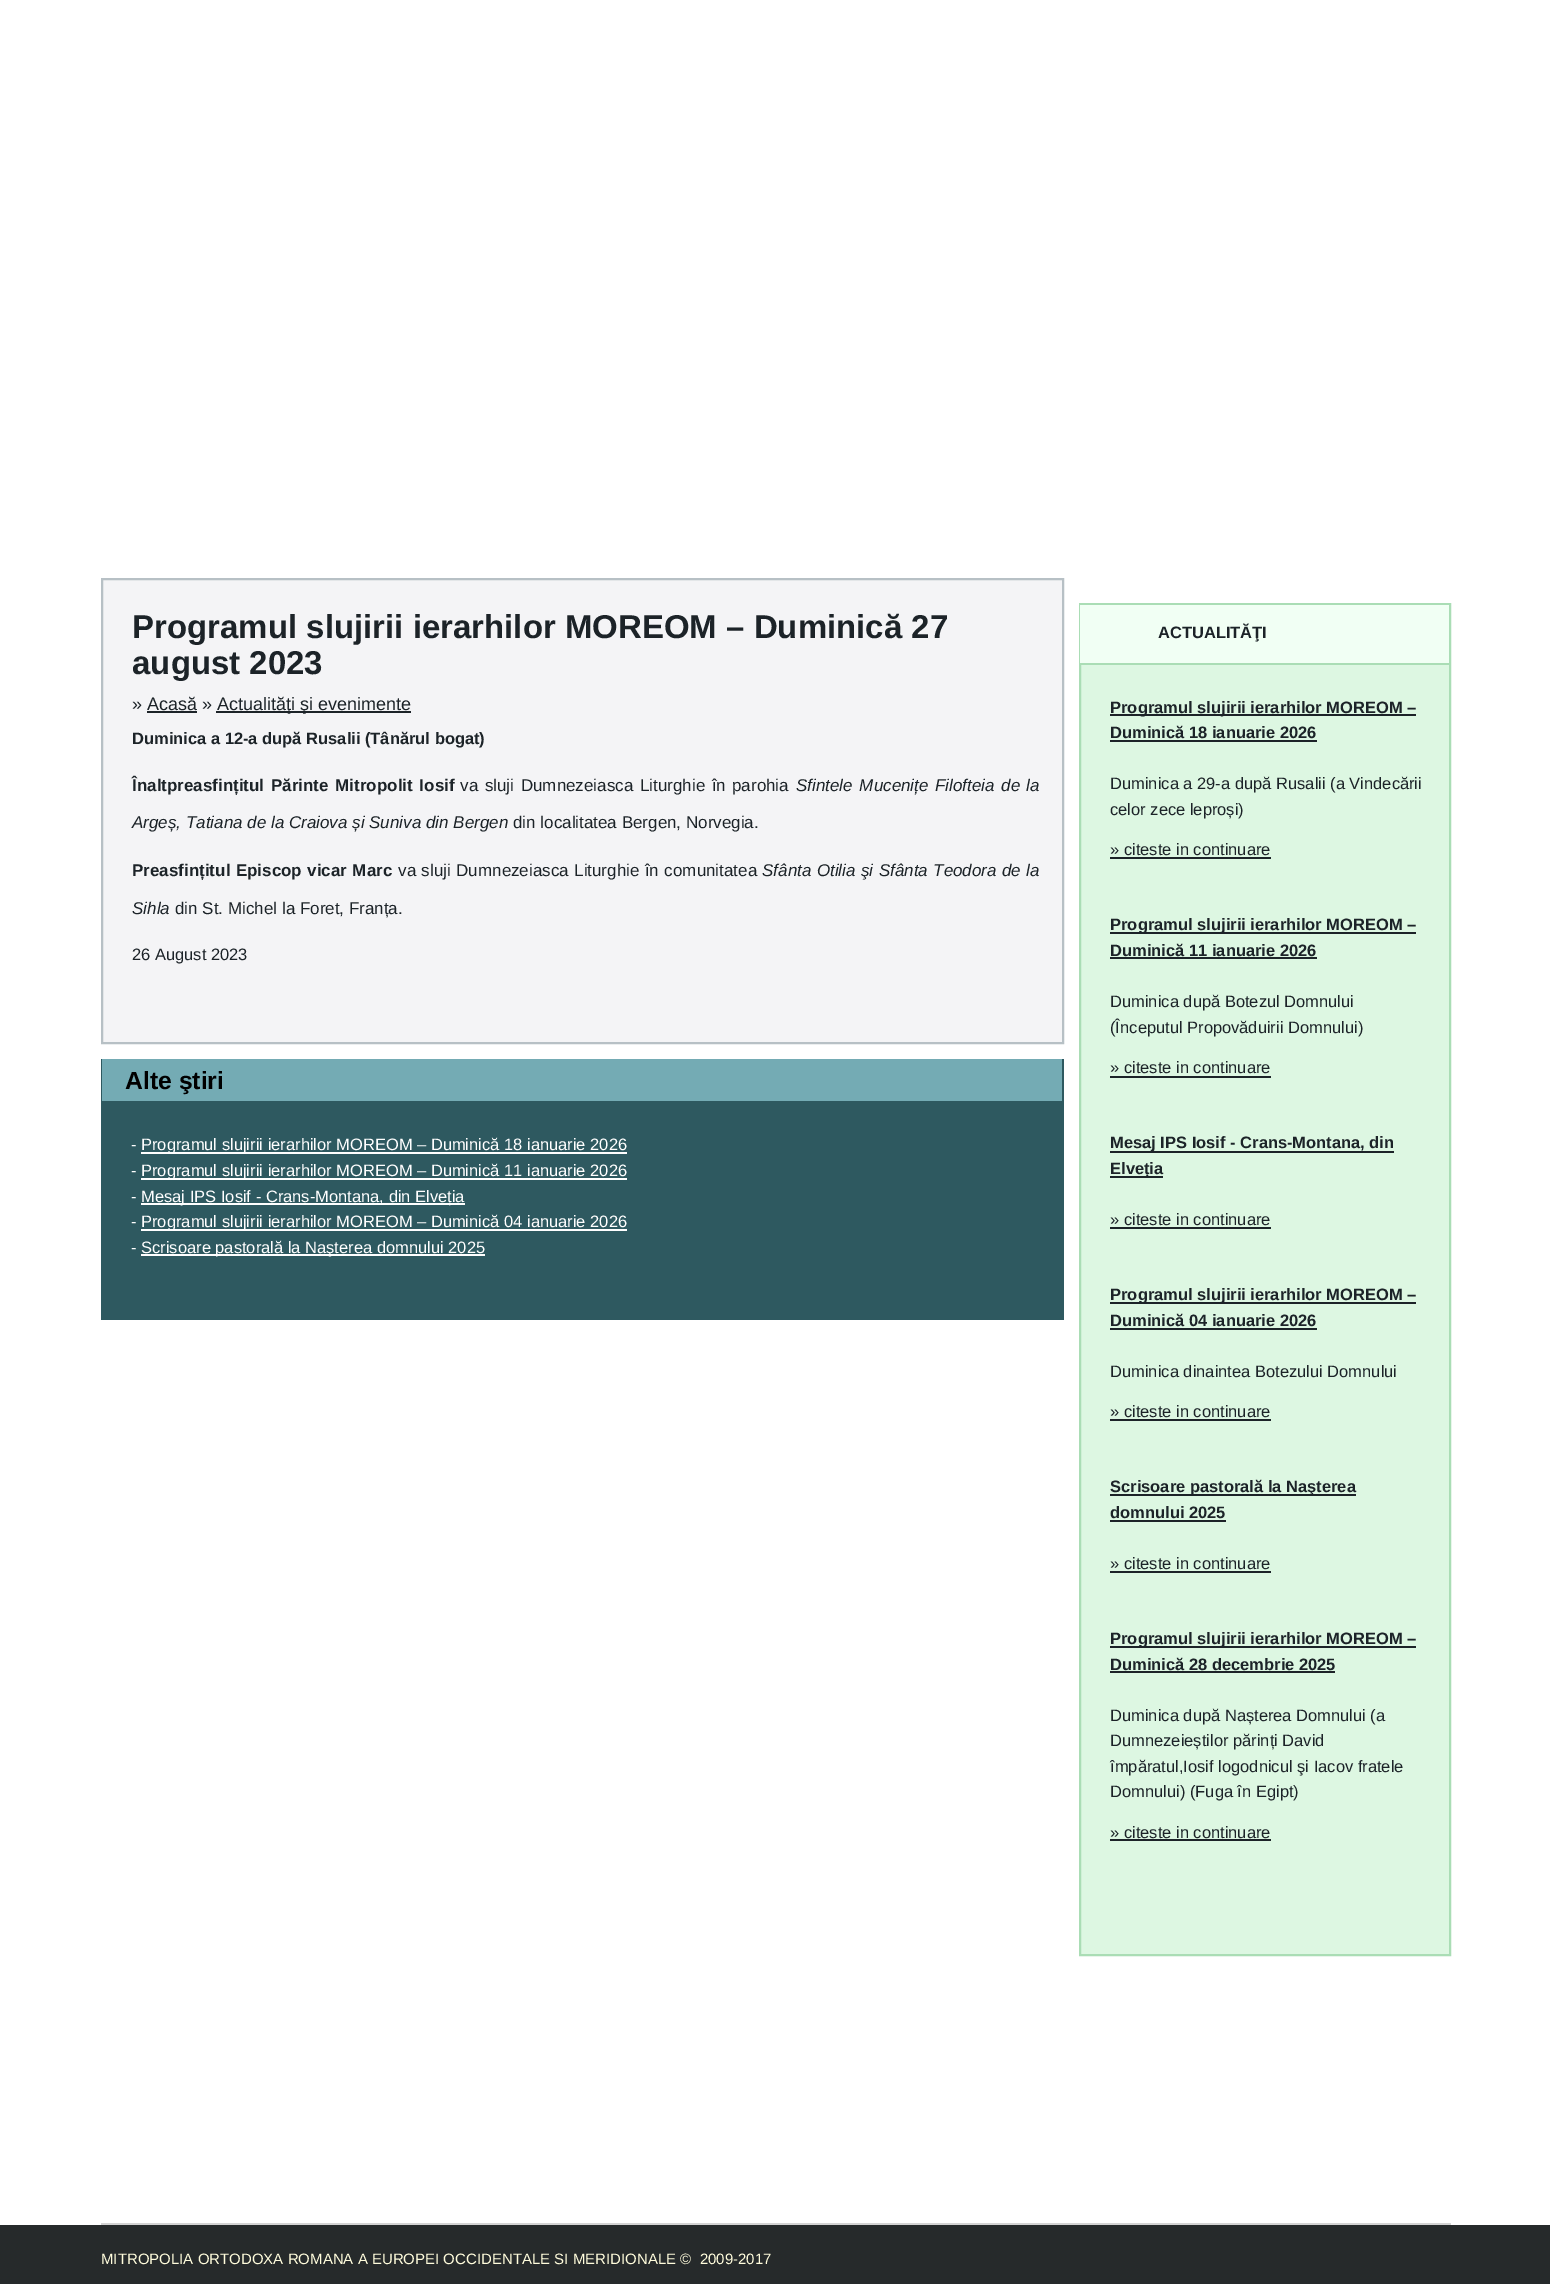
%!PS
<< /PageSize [1550 2284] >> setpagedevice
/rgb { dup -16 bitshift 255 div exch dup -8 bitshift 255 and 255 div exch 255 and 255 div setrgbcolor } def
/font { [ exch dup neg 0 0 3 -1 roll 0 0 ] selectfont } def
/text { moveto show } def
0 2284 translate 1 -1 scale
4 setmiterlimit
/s1 { /LiberationSans-Bold 33 font 16#1C2328 rgb } def
/s2 { /LiberationSans-Regular 18 font 16#1C2328 rgb } def
/s3 { /LiberationSans-Bold 16.5 font 16#1C2328 rgb } def
/s4 { /LiberationSans-Regular 17 font 16#1C2328 rgb } def
/s5 { /LiberationSans-Italic 17 font 16#1C2328 rgb } def
/s6 { /LiberationSans-Regular 16.5 font 16#1C2328 rgb } def
/s7 { /LiberationSans-Bold 24.75 font 16#000000 rgb } def
/s8 { /LiberationSans-Regular 16.5 font 16#FFFFFF rgb } def
/s9 { /LiberationSans-Regular 15 font 16#FFFCDC rgb } def
16#262A2B rgb
0 0 1550 2284 rectfill
16#FFFFFF rgb
0 0 1550 2225 rectfill
16#F4F4F6 rgb
102 579 moveto 1063 579 lineto 1063 1043 lineto 102 1043 lineto closepath gsave fill grestore
16#B7C0C5 rgb
2 setlinewidth
stroke
s1
(Programul slujirii ierarhilor MOREOM – Duminică 27) 132 638 text
(august 2023) 132 674 text
s2
(» Acasă ») 132 710 text
147 711 50 2 rectfill
216 711 195 2 rectfill
(Actualităţi şi evenimente) 217 710 text
s3
(Duminica a 12-a după Rusalii \(Tânărul bogat\)) 132 744 text
/LiberationSans-Bold 17 font
132 791 moveto 2 0 32 (Înaltpreasfințitul Părinte Mitropolit Iosif) widthshow
/LiberationSans-Regular 17 font
460 791 moveto 2 0 32 (va sluji Dumnezeiasca Liturghie în) widthshow
(parohia) 732 791 text
/LiberationSans-Italic 17 font
796 791 moveto 2 0 32 (Sfintele Mucenițe Filofteia de) widthshow
(la) 1026 791 text
(Argeș, Tatiana de la Craiova și Suniva din Bergen) 132 828 text
s4
(din localitatea Bergen, Norvegia.) 513 828 text
/LiberationSans-Bold 17 font
132 876 moveto 0.75 0 32 (Preasfințitul Episcop vicar Marc) widthshow
/LiberationSans-Regular 17 font
398 876 moveto 0.75 0 32 (va sluji Dumnezeiasca Liturghie în comunitatea) widthshow
/LiberationSans-Italic 17 font
762 876 moveto 0.75 0 32 (Sfânta Otilia şi Sfânta Teodora de) widthshow
(la) 1026 876 text
(Sihla) 132 914 text
s4
(din St. Michel la Foret, Franța.) 175 914 text
s6
(26 August 2023) 132 960 text
16#2E5960 rgb
101 1059 963 261 rectfill
16#74ABB4 rgb
102 1059 960 42 rectfill
s7
(Alte ştiri) 125 1089 text
s8
(-) 131 1150 text
141 1152 486 2 rectfill
(Programul slujirii ierarhilor MOREOM – Duminică 18 ianuarie 2026) 141 1150 text
(-) 131 1176 text
141 1178 486 2 rectfill
(Programul slujirii ierarhilor MOREOM – Duminică 11 ianuarie 2026) 141 1176 text
(-) 131 1202 text
141 1203 324 2 rectfill
(Mesaj IPS Iosif - Crans-Montana, din Elveția) 141 1202 text
(-) 131 1227 text
141 1229 486 2 rectfill
(Programul slujirii ierarhilor MOREOM – Duminică 04 ianuarie 2026) 141 1227 text
(-) 131 1253 text
141 1254 344 2 rectfill
(Scrisoare pastorală la Naşterea domnului 2025) 141 1253 text
16#DDF7E2 rgb
1081 665 368 1289 rectfill
16#AADDB5 rgb
1080 604 370 1351 rectstroke
16#F1FFF4 rgb
1080 605 369 58 rectfill
16#AADDB5 rgb
1080 663 369 2 rectfill
s3
(ACTUALITĂŢI) 1158 638 text
1110 714 306 2 rectfill
(Programul slujirii ierarhilor MOREOM –) 1110 713 text
(Duminică 18 ianuarie 2026) 1110 738 text
1110 740 207 2 rectfill
s6
(Duminica a 29-a după Rusalii \(a Vindecării) 1110 789 text
(celor zece leproși\)) 1110 815 text
(» citeste in continuare) 1110 855 text
1110 857 161 2 rectfill
1110 932 306 2 rectfill
s3
(Programul slujirii ierarhilor MOREOM –) 1110 930 text
(Duminică 11 ianuarie 2026) 1110 956 text
1110 957 207 2 rectfill
s6
(Duminica după Botezul Domnului) 1110 1007 text
(\(Începutul Propovăduirii Domnului\)) 1110 1033 text
(» citeste in continuare) 1110 1073 text
1110 1076 161 2 rectfill
1110 1151 284 2 rectfill
s3
(Mesaj IPS Iosif - Crans-Montana, din) 1110 1148 text
1110 1176 53 2 rectfill
(Elveția) 1110 1174 text
s6
(» citeste in continuare) 1110 1225 text
1110 1227 161 2 rectfill
1110 1302 306 2 rectfill
s3
(Programul slujirii ierarhilor MOREOM –) 1110 1300 text
(Duminică 04 ianuarie 2026) 1110 1326 text
1110 1328 207 2 rectfill
s6
(Duminica dinaintea Botezului Domnului) 1110 1377 text
(» citeste in continuare) 1110 1417 text
1110 1419 161 2 rectfill
1110 1494 246 2 rectfill
s3
(Scrisoare pastorală la Naşterea) 1110 1492 text
(domnului 2025) 1110 1518 text
1110 1520 116 2 rectfill
s6
(» citeste in continuare) 1110 1569 text
1110 1571 161 2 rectfill
1110 1646 306 2 rectfill
s3
(Programul slujirii ierarhilor MOREOM –) 1110 1644 text
(Duminică 28 decembrie 2025) 1110 1670 text
1110 1671 225 2 rectfill
s6
(Duminica după Nașterea Domnului \(a) 1110 1721 text
(Dumnezeieștilor părinți David) 1110 1746 text
(împăratul,Iosif logodnicul şi Iacov fratele) 1110 1772 text
(Domnului\) \(Fuga în Egipt\)) 1110 1797 text
(» citeste in continuare) 1110 1838 text
1110 1839 161 2 rectfill
16#D3D3D3 rgb
101 2223 1350 2 rectfill
s9
(MITROPOLIA ORTODOXA ROMANA A EUROPEI OCCIDENTALE SI MERIDIONALE ©  2009-2017) 101 2264 text
showpage
